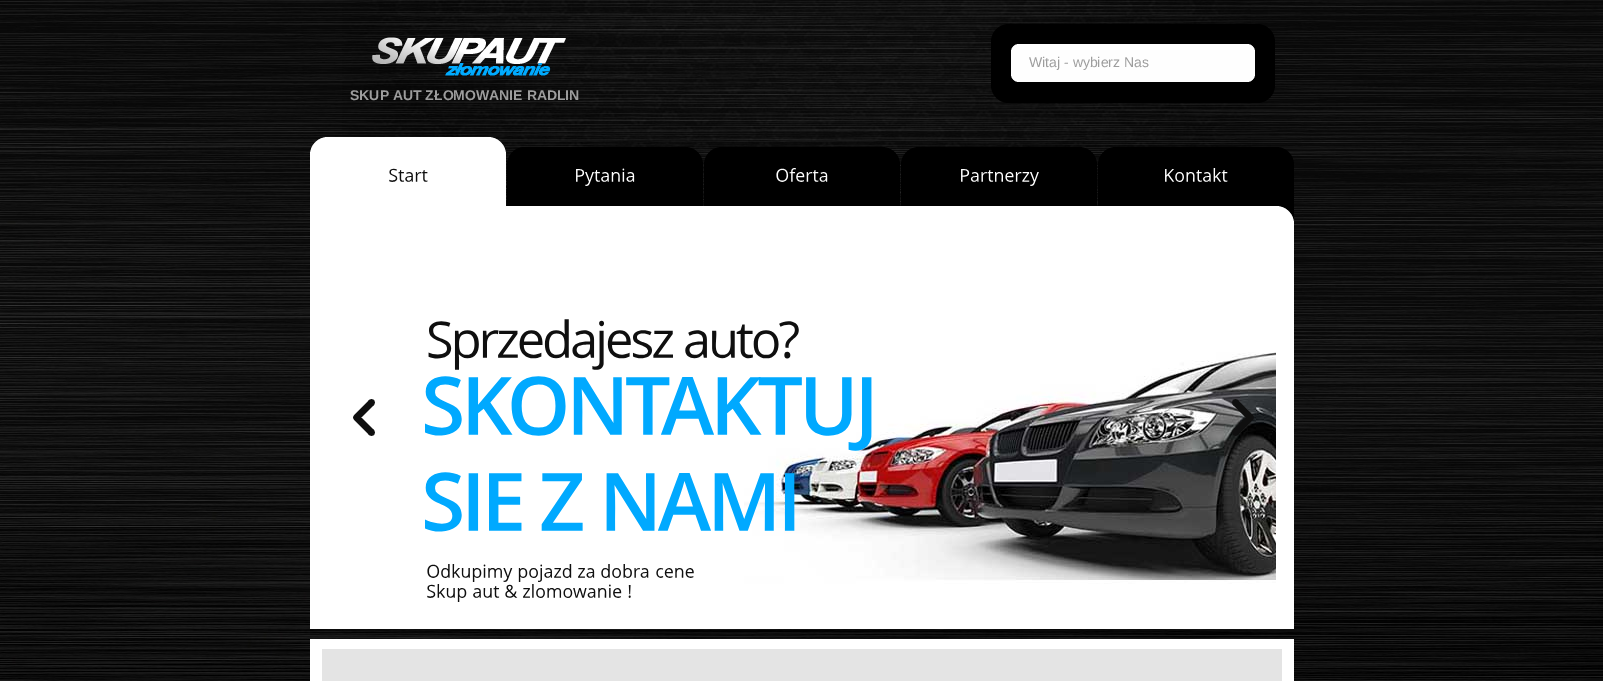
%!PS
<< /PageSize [1603 681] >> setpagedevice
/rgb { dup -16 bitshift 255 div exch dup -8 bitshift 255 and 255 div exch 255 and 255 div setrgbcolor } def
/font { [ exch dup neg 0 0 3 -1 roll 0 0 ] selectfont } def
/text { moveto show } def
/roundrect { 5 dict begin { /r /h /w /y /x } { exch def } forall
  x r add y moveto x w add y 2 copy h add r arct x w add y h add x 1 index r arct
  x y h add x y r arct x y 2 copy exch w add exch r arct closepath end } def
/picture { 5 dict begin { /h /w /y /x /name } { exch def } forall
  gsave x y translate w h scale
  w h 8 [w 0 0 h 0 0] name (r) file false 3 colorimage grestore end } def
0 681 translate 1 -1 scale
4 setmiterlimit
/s1 { /LiberationSans-Regular 14 font 16#9D9D9D rgb } def
/s2 { /LiberationSans-Bold 14 font 16#9D9D9D rgb } def
16#FFFFFF rgb
0 0 1603 681 rectfill
(pic1.raw) 0 0 1603 681 picture
(pic2.raw) 342 0 909 636 picture
16#000000 rgb
991 24 284 79 18 roundrect fill
16#FEFEFE rgb
1011 44 244 38 8 roundrect fill
s1
(Witaj - wybierz Nas) 1029 67 text
(pic3.raw) 372 37 194 39 picture
s2
(SKUP AUT ZŁOMOWANIE RADLIN) 350 100 text
16#FFFFFF rgb
328 137 moveto 488 137 lineto 498 137 506 145 506 155 curveto 506 222 lineto 310 222 lineto 310 155 lineto 310 145 318 137 328 137 curveto closepath fill
(pic4.raw) 389 168 39 14 picture
16#000000 rgb
525 147 moveto 685 147 lineto 695 147 703 155 703 165 curveto 703 222 lineto 507 222 lineto 507 165 lineto 507 155 515 147 525 147 curveto closepath fill
(pic5.raw) 576 168 59 18 picture
722 147 moveto 882 147 lineto 892 147 900 155 900 165 curveto 900 222 lineto 704 222 lineto 704 165 lineto 704 155 712 147 722 147 curveto closepath fill
(pic6.raw) 776 168 52 14 picture
919 147 moveto 1079 147 lineto 1089 147 1097 155 1097 165 curveto 1097 222 lineto 901 222 lineto 901 165 lineto 901 155 909 147 919 147 curveto closepath fill
(pic7.raw) 961 169 78 17 picture
1116 147 moveto 1276 147 lineto 1286 147 1294 155 1294 165 curveto 1294 222 lineto 1098 222 lineto 1098 165 lineto 1098 155 1106 147 1116 147 curveto closepath fill
(pic8.raw) 1165 168 63 14 picture
16#FFFFFF rgb
310 206 moveto 1276 206 lineto 1286 206 1294 214 1294 224 curveto 1294 629 lineto 310 629 lineto closepath fill
(pic9.raw) 353 399 22 37 picture
(pic10.raw) 428 319 245 51 picture
(pic26.raw) 744 352 532 232 picture
(pic11.raw) 685 321 114 38 picture
(pic12.raw) 425 376 447 75 picture
(pic13.raw) 425 472 97 60 picture
(pic14.raw) 541 473 42 58 picture
(pic15.raw) 606 473 189 58 picture
(pic16.raw) 427 564 86 18 picture
(pic17.raw) 518 564 54 18 picture
(pic18.raw) 578 568 17 10 picture
(pic19.raw) 601 564 48 14 picture
(pic20.raw) 656 568 38 10 picture
(pic21.raw) 427 584 40 18 picture
(pic22.raw) 473 586 27 12 picture
(pic23.raw) 505 584 13 14 picture
(pic24.raw) 523 584 99 14 picture
(pic25.raw) 628 585 3 13 picture
(pic27.raw) 1232 399 22 37 picture
310 639 984 42 rectfill
16#E4E4E4 rgb
322 649 960 32 rectfill
showpage
